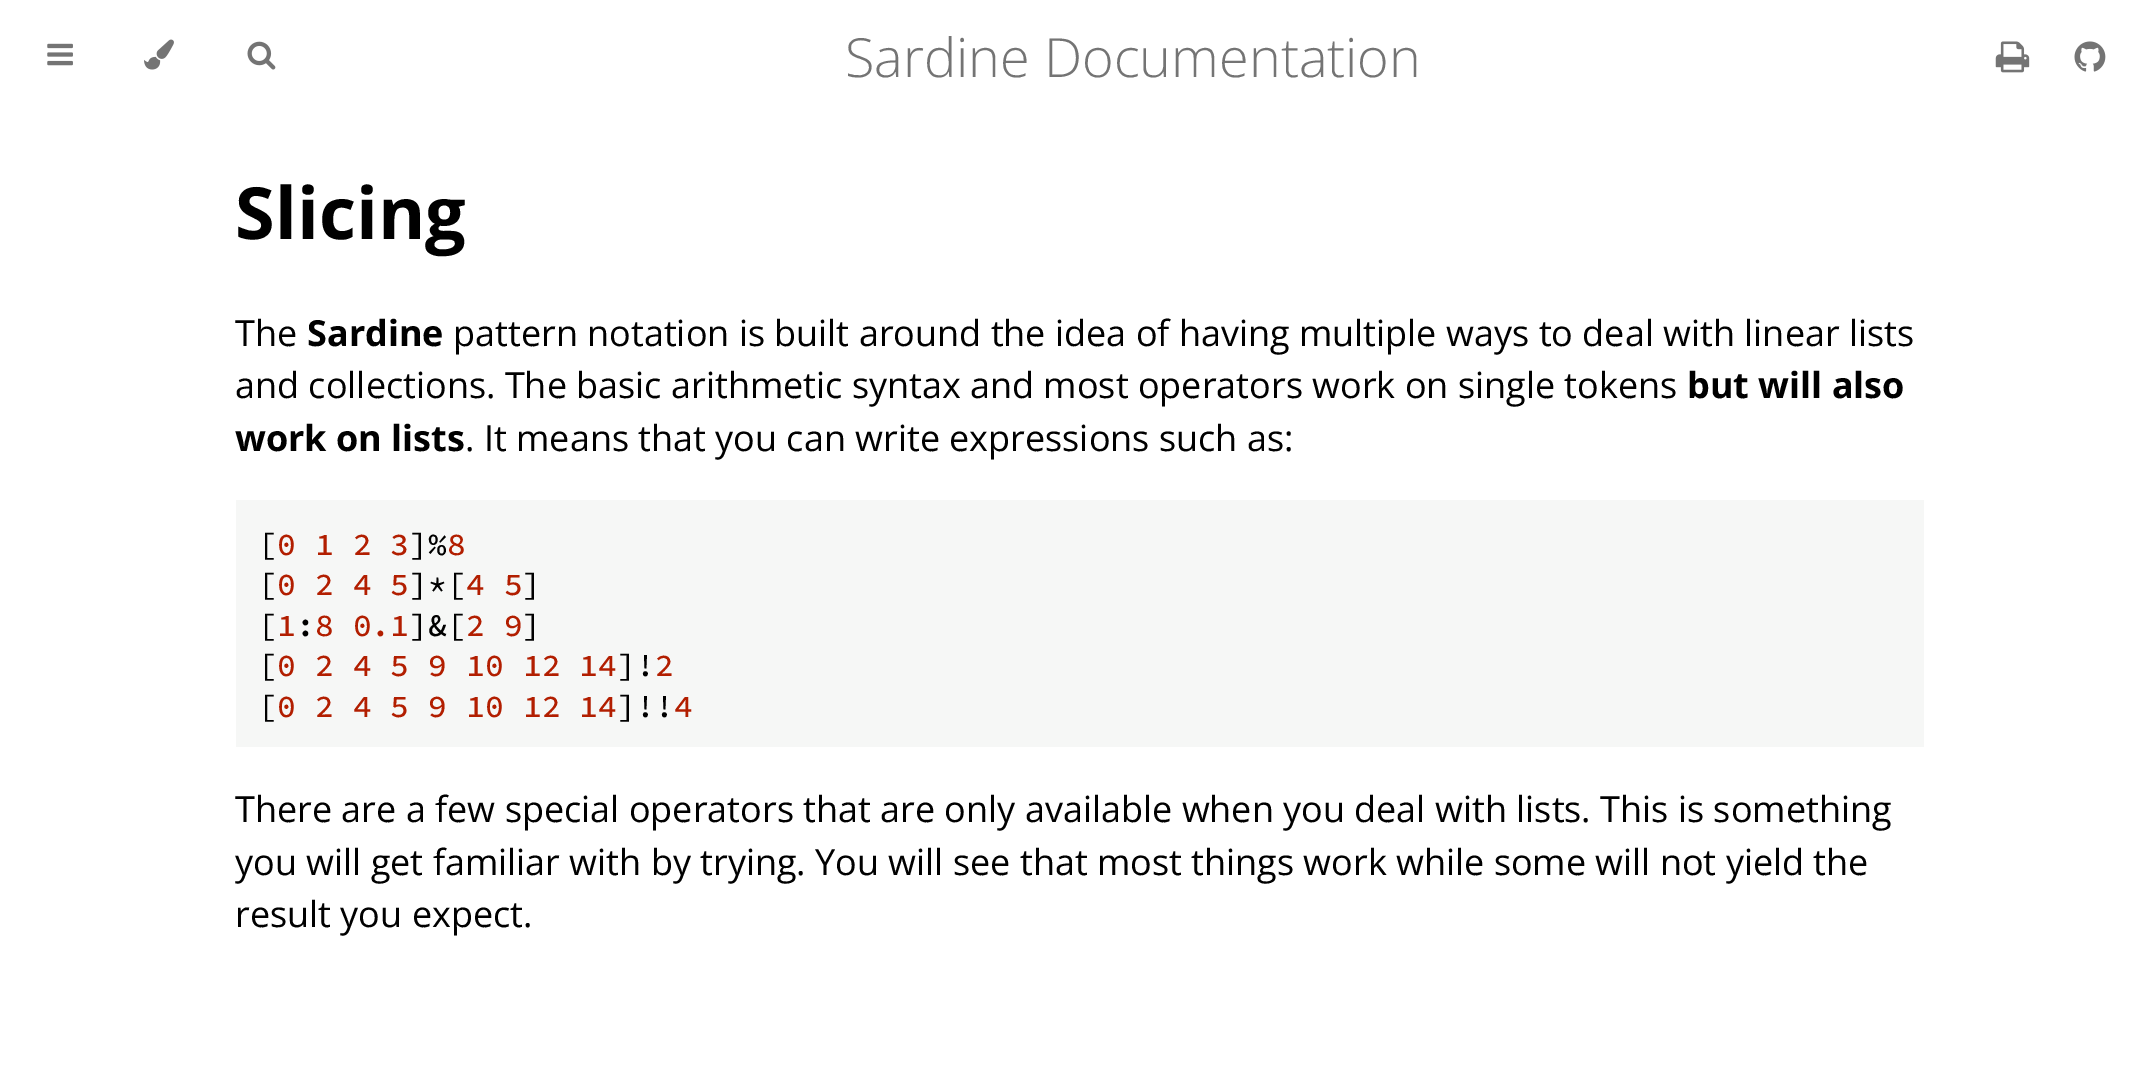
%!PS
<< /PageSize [2156 1065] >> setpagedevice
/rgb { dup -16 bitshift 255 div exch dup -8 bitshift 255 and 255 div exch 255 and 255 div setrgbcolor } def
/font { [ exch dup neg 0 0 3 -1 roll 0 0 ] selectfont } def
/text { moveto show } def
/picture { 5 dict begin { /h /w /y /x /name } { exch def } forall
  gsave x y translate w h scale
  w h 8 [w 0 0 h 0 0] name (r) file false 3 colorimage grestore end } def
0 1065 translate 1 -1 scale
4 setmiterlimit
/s1 { /OpenSans-Light 54 font 16#747474 rgb } def
/s2 { /OpenSans-Bold 72 font 16#000000 rgb } def
/s3 { /OpenSans-Regular 36 font 16#000000 rgb } def
/s4 { /OpenSans-Bold 36 font 16#000000 rgb } def
/s5 { /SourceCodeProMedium-Medium 31.5 font 16#000000 rgb } def
/s6 { /SourceCodeProMedium-Medium 31.5 font 16#B21E00 rgb } def
16#FFFFFF rgb
0 0 2156 1065 rectfill
(pic1.raw) 47 43 26 23 picture
(pic2.raw) 144 39 30 31 picture
(pic3.raw) 247 41 29 29 picture
s1
(Sardine Documentation) 845 77 text
(pic4.raw) 1995 41 35 32 picture
(pic5.raw) 2074 41 32 31 picture
s2
(Slicing) 235 239 text
s3
(The) 235 346 text
s4
(Sardine) 307 346 text
s3
(pattern notation is built around the idea of having multiple ways to deal with linear lists) 453 346 text
(and collections. The basic arithmetic syntax and most operators work on single tokens) 235 398 text
s4
(but will also) 1687 398 text
(work on lists) 235 451 text
s3
(. It means that you can write expressions such as:) 465 451 text
16#F6F7F6 rgb
236 500 1688 247 rectfill
s5
([) 258 555 text
s6
(0 1 2 3) 277 555 text
s5
(]%) 409 555 text
s6
(8) 447 555 text
s5
([) 258 595 text
s6
(0 2 4 5) 277 595 text
s5
(]*[) 409 595 text
s6
(4 5) 466 595 text
s5
(]) 522 595 text
([ :) 258 636 text
(]&[) 409 636 text
(]) 522 636 text
s6
(1 8 0.1) 277 636 text
(2 9) 466 636 text
s5
([) 258 676 text
s6
(0 2 4 5 9 10 12 14) 277 676 text
s5
(]!) 617 676 text
s6
(2) 655 676 text
s5
([) 258 717 text
s6
(0 2 4 5 9 10 12 14) 277 717 text
s5
(]!!) 617 717 text
s6
(4) 674 717 text
s3
(There are a few special operators that are only available when you deal with lists. This is something) 235 822 text
(you will get familiar with by trying. You will see that most things work while some will not yield the) 235 875 text
(result you expect.) 235 927 text
showpage
